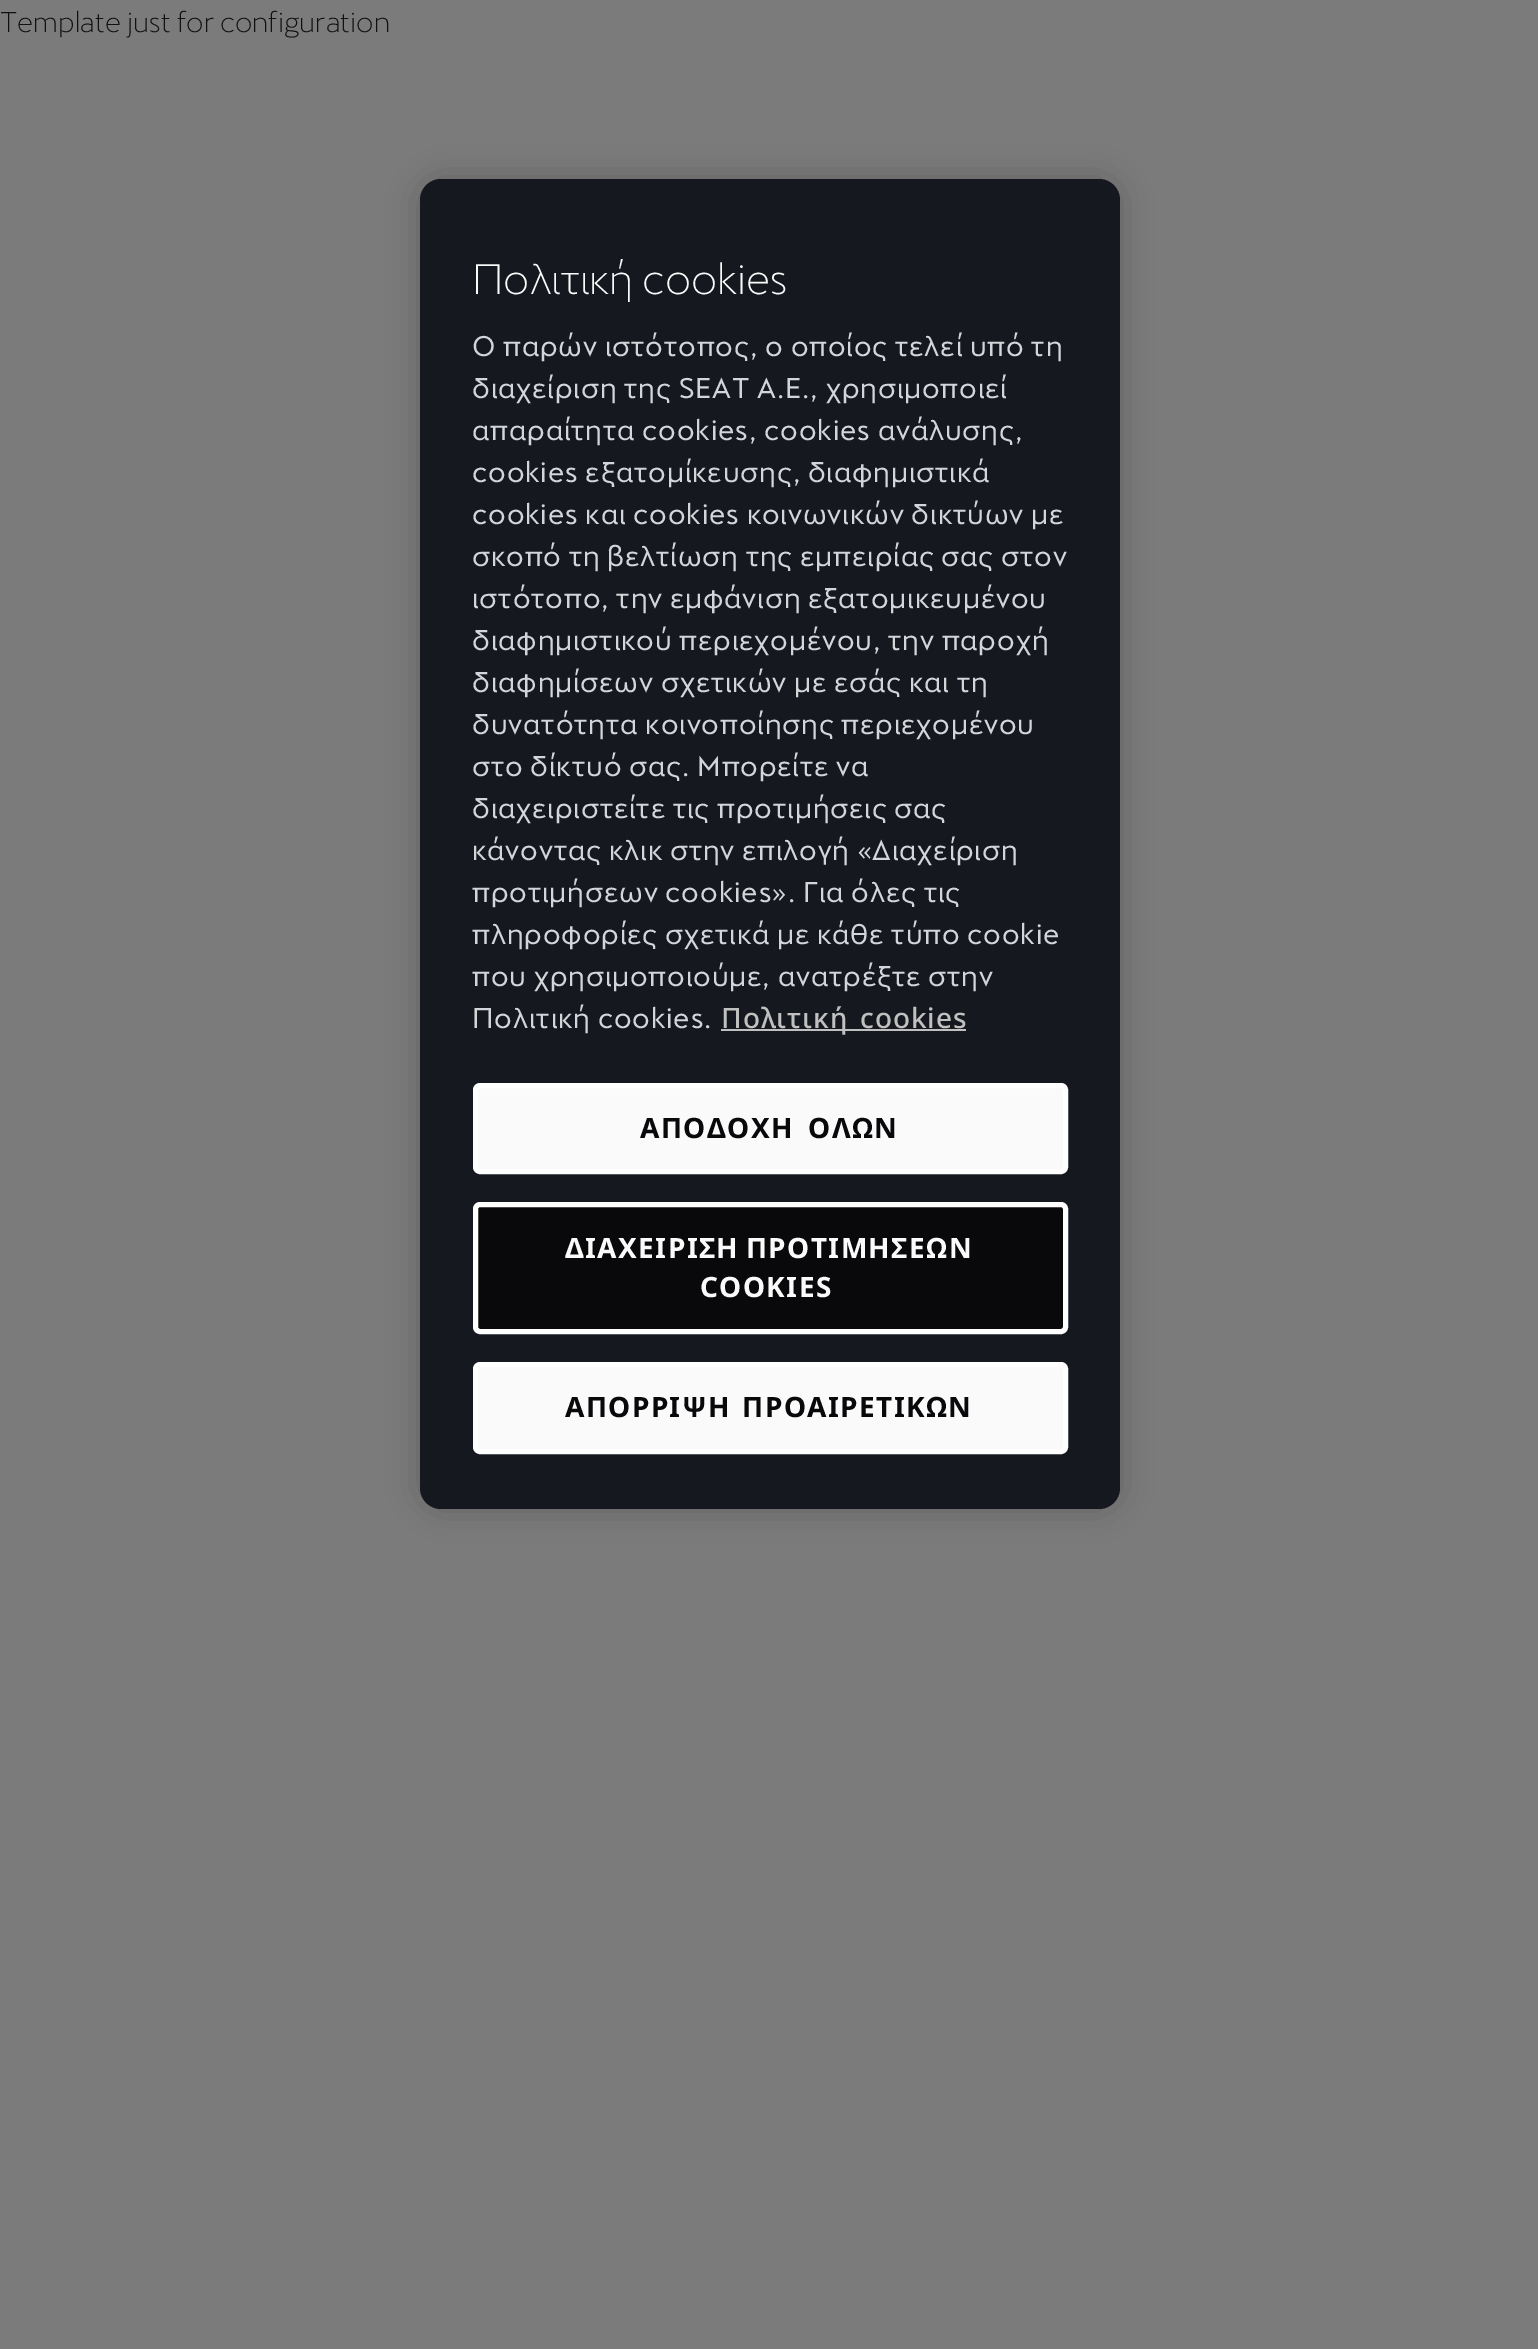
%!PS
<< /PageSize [1538 2349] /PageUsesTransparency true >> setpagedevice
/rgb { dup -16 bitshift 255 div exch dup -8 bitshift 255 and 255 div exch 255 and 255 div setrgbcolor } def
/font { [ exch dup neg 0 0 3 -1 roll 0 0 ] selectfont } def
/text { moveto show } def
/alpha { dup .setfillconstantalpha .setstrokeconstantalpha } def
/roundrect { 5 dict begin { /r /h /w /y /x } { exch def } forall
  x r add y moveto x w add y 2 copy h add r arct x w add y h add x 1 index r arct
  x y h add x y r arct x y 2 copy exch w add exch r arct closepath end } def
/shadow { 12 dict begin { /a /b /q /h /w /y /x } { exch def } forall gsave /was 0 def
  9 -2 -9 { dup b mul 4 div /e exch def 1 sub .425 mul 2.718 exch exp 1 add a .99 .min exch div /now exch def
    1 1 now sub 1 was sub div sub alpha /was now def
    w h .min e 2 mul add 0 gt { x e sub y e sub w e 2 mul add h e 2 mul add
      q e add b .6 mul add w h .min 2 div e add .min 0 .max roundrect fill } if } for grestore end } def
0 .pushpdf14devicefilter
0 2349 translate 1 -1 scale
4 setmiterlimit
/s1 { /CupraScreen-Light 28 font 16#121111 rgb } def
/s2 { /CupraScreen-Light 42 font 16#FAFAFA rgb } def
16#7B7B7B rgb
0 0 1538 2349 rectfill
s1
(Template just for configuration) 0 32 text
16#000000 rgb
420 179 700 1330 21 16 0.2 shadow
16#15181E rgb
420 179 700 1330 21 roundrect fill
s2
(Πολιτική cookies) 472 294 text
/CupraScreen-Regular 28 font
16#D3D6D9 rgb
472 356 moveto 0.9 0 (Ο παρών ιστότοπος, ο οποίος τελεί υπό τη) ashow
472 398 moveto 0.9 0 (διαχείριση της SEAT Α.Ε., χρησιμοποιεί) ashow
472 440 moveto 0.9 0 (απαραίτητα cookies, cookies ανάλυσης,) ashow
472 482 moveto 0.9 0 (cookies εξατομίκευσης, διαφημιστικά) ashow
472 524 moveto 0.9 0 (cookies και cookies κοινωνικών δικτύων με) ashow
472 566 moveto 0.9 0 (σκοπό τη βελτίωση της εμπειρίας σας στον) ashow
472 608 moveto 0.9 0 (ιστότοπο, την εμφάνιση εξατομικευμένου) ashow
472 650 moveto 0.9 0 (διαφημιστικού περιεχομένου, την παροχή) ashow
472 692 moveto 0.9 0 (διαφημίσεων σχετικών με εσάς και τη) ashow
472 734 moveto 0.9 0 (δυνατότητα κοινοποίησης περιεχομένου) ashow
472 776 moveto 0.9 0 (στο δίκτυό σας. Μπορείτε να) ashow
472 818 moveto 0.9 0 (διαχειριστείτε τις προτιμήσεις σας) ashow
472 860 moveto 0.9 0 (κάνοντας κλικ στην επιλογή «Διαχείριση) ashow
472 902 moveto 0.9 0 (προτιμήσεων cookies». Για όλες τις) ashow
472 944 moveto 0.9 0 (πληροφορίες σχετικά με κάθε τύπο cookie) ashow
472 986 moveto 0.9 0 (που χρησιμοποιούμε, ανατρέξτε στην) ashow
472 1028 moveto 0.9 0 (Πολιτική cookies.) ashow
16#C0C0C0 rgb
721 1029 245 2 rectfill
/NotoSans-Medium 28 font
721 1028 moveto 4 0 32 0.9 0 (Πολιτική cookies) awidthshow
16#FAFAFA rgb
475.5 1085.5 590 86 4.5 roundrect gsave fill grestore
16#FFFFFF rgb
5 setlinewidth
stroke
/NotoSans-Bold 28 font
16#09090B rgb
640 1138 moveto 6 0 32 1.4 0 (ΑΠΟΔΟΧΗ ΟΛΩΝ) awidthshow
475.5 1204.5 590 127 4.5 roundrect gsave fill grestore
16#FFFFFF rgb
stroke
16#FAFAFA rgb
565 1258 moveto -2 0 32 1.4 0 (ΔΙΑΧΕΙΡΙΣΗ ΠΡΟΤΙΜΗΣΕΩΝ) awidthshow
700 1297 moveto 1.4 0 (COOKIES) ashow
475.5 1364.5 590 87 4.5 roundrect gsave fill grestore
16#FFFFFF rgb
stroke
16#09090B rgb
565 1417 moveto 3 0 32 1.4 0 (ΑΠΟΡΡΙΨΗ ΠΡΟΑΙΡΕΤΙΚΩΝ) awidthshow
.poppdf14devicefilter showpage
